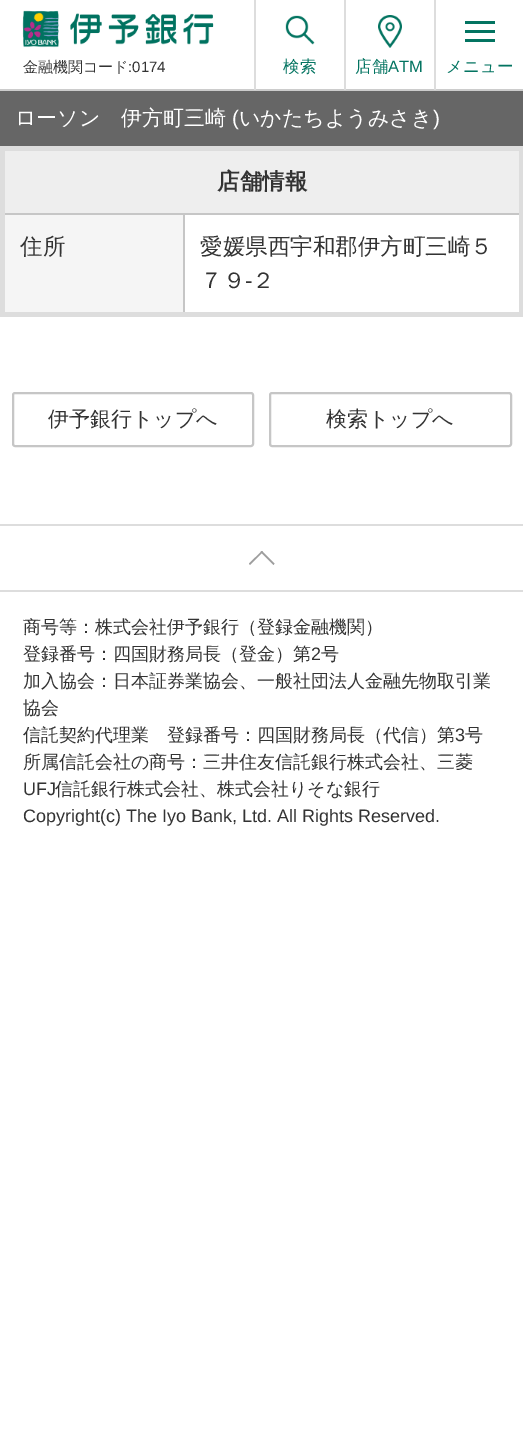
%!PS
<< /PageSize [523 1430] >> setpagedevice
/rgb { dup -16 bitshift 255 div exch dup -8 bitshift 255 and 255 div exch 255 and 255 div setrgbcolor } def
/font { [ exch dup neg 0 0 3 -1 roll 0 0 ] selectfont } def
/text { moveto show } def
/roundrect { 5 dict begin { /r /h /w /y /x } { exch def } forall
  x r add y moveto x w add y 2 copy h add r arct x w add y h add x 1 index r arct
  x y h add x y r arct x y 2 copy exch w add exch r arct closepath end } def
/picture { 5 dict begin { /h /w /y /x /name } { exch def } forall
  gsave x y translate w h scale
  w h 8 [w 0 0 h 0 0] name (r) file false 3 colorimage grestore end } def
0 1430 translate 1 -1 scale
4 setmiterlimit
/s1 { /WenQuanYiZenHei-Medium 15 font 16#333333 rgb } def
/s2 { /LiberationSans-Regular 15 font 16#333333 rgb } def
/s3 { /WenQuanYiZenHei-Medium 16.5 font 16#037461 rgb } def
/s4 { /LiberationSans-Regular 16.5 font 16#037461 rgb } def
/s5 { /WenQuanYiZenHei-Medium 21 font 16#FFFFFF rgb } def
/s6 { /LiberationSans-Regular 21 font 16#FFFFFF rgb } def
/s7 { /WenQuanYiZenHei-Bold 22.5 font 16#333333 rgb } def
/s8 { /WenQuanYiZenHei-Medium 22.5 font 16#333333 rgb } def
/s9 { /LiberationSans-Regular 22.5 font 16#333333 rgb } def
/s10 { /WenQuanYiZenHei-Medium 21 font 16#333333 rgb } def
/s11 { /WenQuanYiZenHei-Medium 18 font 16#333333 rgb } def
/s12 { /LiberationSans-Regular 18 font 16#333333 rgb } def
16#FFFFFF rgb
0 0 523 1430 rectfill
16#CCCCCC rgb
0 89 523 2 rectfill
(pic1.raw) 22 10 192 38 picture
s1
(金融機関コード) 23 72 text
s2
(:0174) 128 72 text
16#DDDDDD rgb
254 0 2 90 rectfill
(pic2.raw) 285 15 30 30 picture
s3
(検索) 283 72 text
16#DDDDDD rgb
344 0 2 90 rectfill
(pic3.raw) 378 15 24 33 picture
s3
(店舗) 355 72 text
s4
(ATM) 388 72 text
16#DDDDDD rgb
434 0 2 90 rectfill
16#037461 rgb
465 21 30 3 rectfill
465 30 30 3 rectfill
465 39 30 3 rectfill
s3
(メニュー) 446 72 text
16#666666 rgb
0 91 523 55 rectfill
s5
(ローソン　伊方町三崎) 15 125 text
s6
(\() 232 125 text
s5
(いかたちようみさき) 239 125 text
s6
(\)) 433 125 text
16#DDDDDD rgb
0 146 523 5 rectfill
16#C6C6C6 rgb
183 213 339 2 rectfill
16#DDDDDD rgb
519 146 4 171 rectfill
16#C6C6C6 rgb
183 213 2 102 rectfill
16#DDDDDD rgb
0 312 523 5 rectfill
16#C6C6C6 rgb
2 213 183 2 rectfill
16#DDDDDD rgb
0 146 5 171 rectfill
16#EEEEEE rgb
5 151 514 62 rectfill
s7
(店舗情報) 217 189 text
16#F5F5F5 rgb
5 215 178 97 rectfill
s8
(住所) 20 254 text
(愛媛県西宇和郡伊方町三崎５) 200 254 text
(７９) 200 288 text
s9
(‐) 245 288 text
s8
(２) 252 288 text
16#C6C6C6 rgb
2 setlinewidth
13 393 240 53 2 roundrect stroke
s10
(伊予銀行トップへ) 48 426 text
16#C6C6C6 rgb
270 393 241 53 2 roundrect stroke
s10
(検索トップへ) 326 426 text
16#DDDDDD rgb
0 524 523 2 rectfill
0 590 523 2 rectfill
16#9E9E9E rgb
249 563.5 moveto 262 551 lineto 263 552 lineto 250 565 lineto closepath fill
260.5 552 moveto 262 551 lineto 274.5 563.5 lineto 273.5 565 lineto closepath fill
s11
(商号等：株式会社伊予銀行（登録金融機関）) 23 633 text
(登録番号：四国財務局長（登金）第) 23 660 text
s12
(2) 311 660 text
s11
(号) 321 660 text
(加入協会：日本証券業協会、一般社団法人金融先物取引業) 23 687 text
(協会) 23 714 text
(信託契約代理業　登録番号：四国財務局長（代信）第) 23 741 text
s12
(3) 455 741 text
s11
(号) 465 741 text
(所属信託会社の商号：三井住友信託銀行株式会社、三菱) 23 768 text
s12
(UFJ) 23 795 text
s11
(信託銀行株式会社、株式会社りそな銀行) 55 795 text
s12
(Copyright\(c\) The Iyo Bank, Ltd. All Rights Reserved.) 23 822 text
showpage
